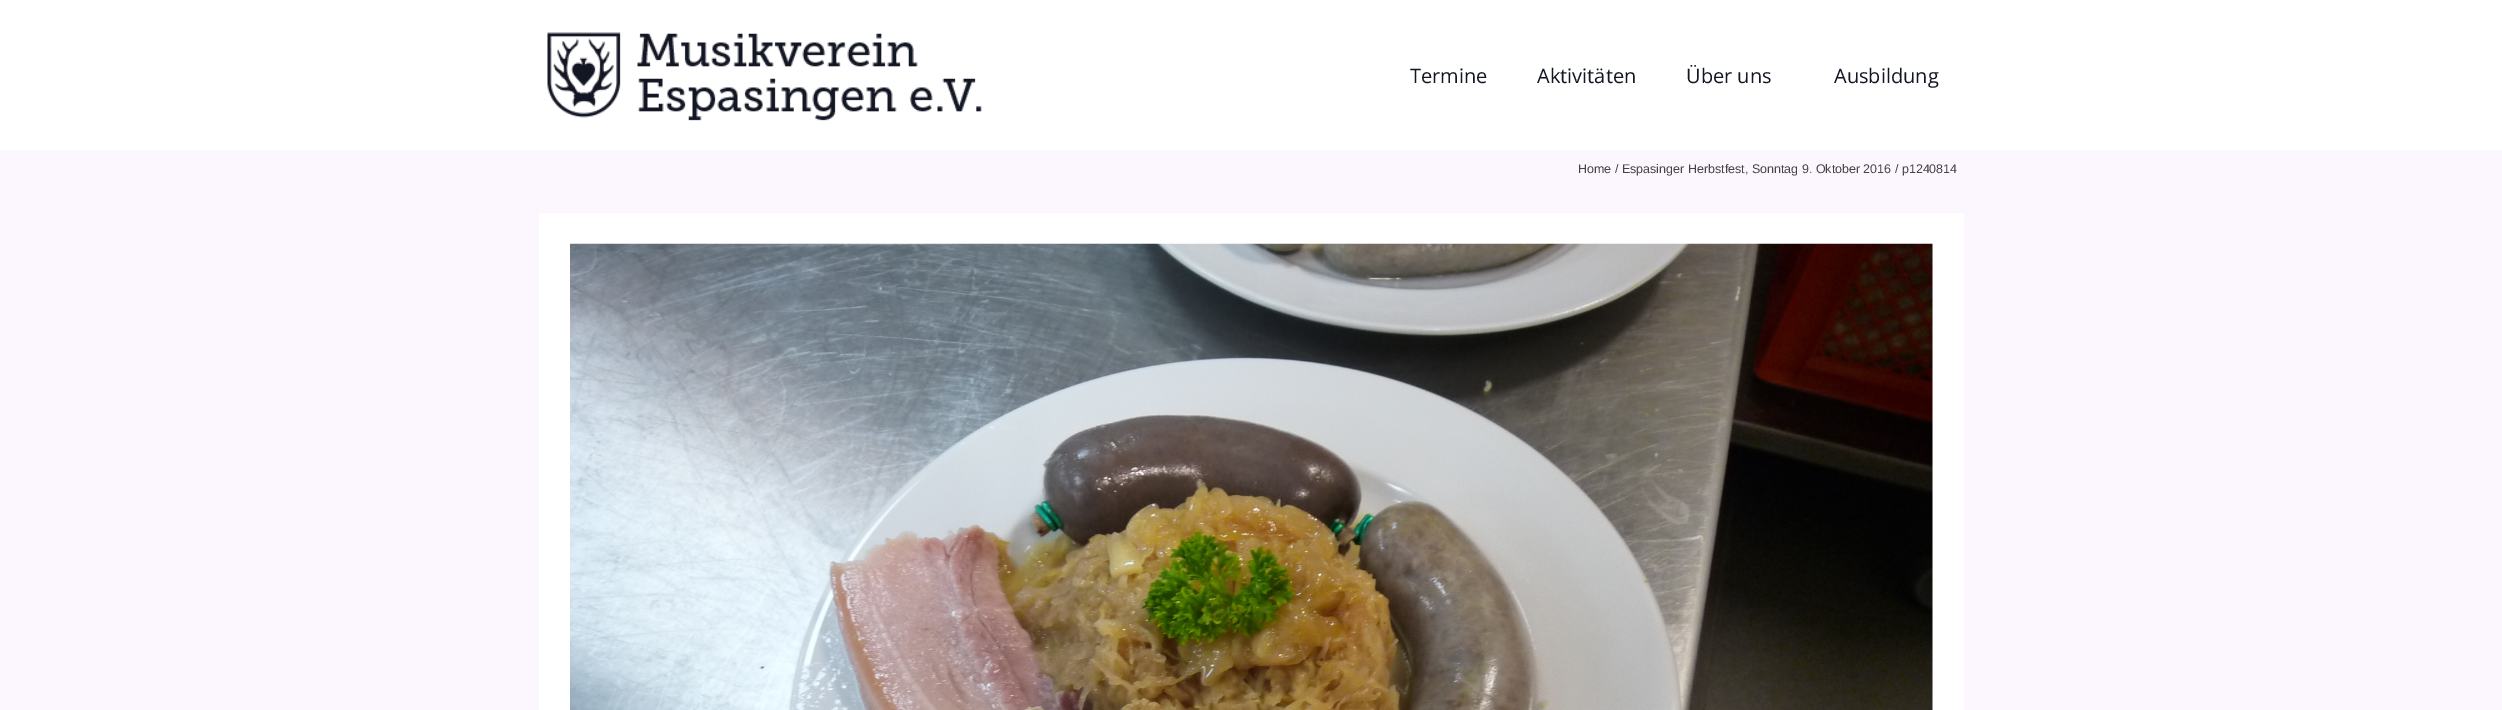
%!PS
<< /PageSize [2502 710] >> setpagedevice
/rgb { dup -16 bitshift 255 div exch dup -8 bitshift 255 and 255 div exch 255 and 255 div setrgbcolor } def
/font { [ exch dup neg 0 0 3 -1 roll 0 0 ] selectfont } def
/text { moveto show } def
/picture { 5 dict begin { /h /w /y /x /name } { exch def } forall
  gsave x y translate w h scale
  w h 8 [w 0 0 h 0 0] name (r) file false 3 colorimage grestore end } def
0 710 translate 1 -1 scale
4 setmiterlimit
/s1 { /OpenSans-Regular 20 font 16#131623 rgb } def
/s2 { /LiberationSans-Regular 12.5 font 16#444444 rgb } def
16#FFFFFF rgb
0 0 2502 710 rectfill
(pic1.raw) 547 32 435 89 picture
s1
(Termine) 1410 83 text
(Aktivitäten) 1537 83 text
(Über uns) 1686 83 text
(Ausbildung) 1834 83 text
16#FCF7FF rgb
0 150 2502 560 rectfill
s2
(Home / Espasinger Herbstfest, Sonntag 9. Oktober 2016 / p1240814) 1578 173 text
16#FFFFFF rgb
539 213 1425 497 rectfill
(pic2.raw) 570 243 1363 467 picture
showpage
